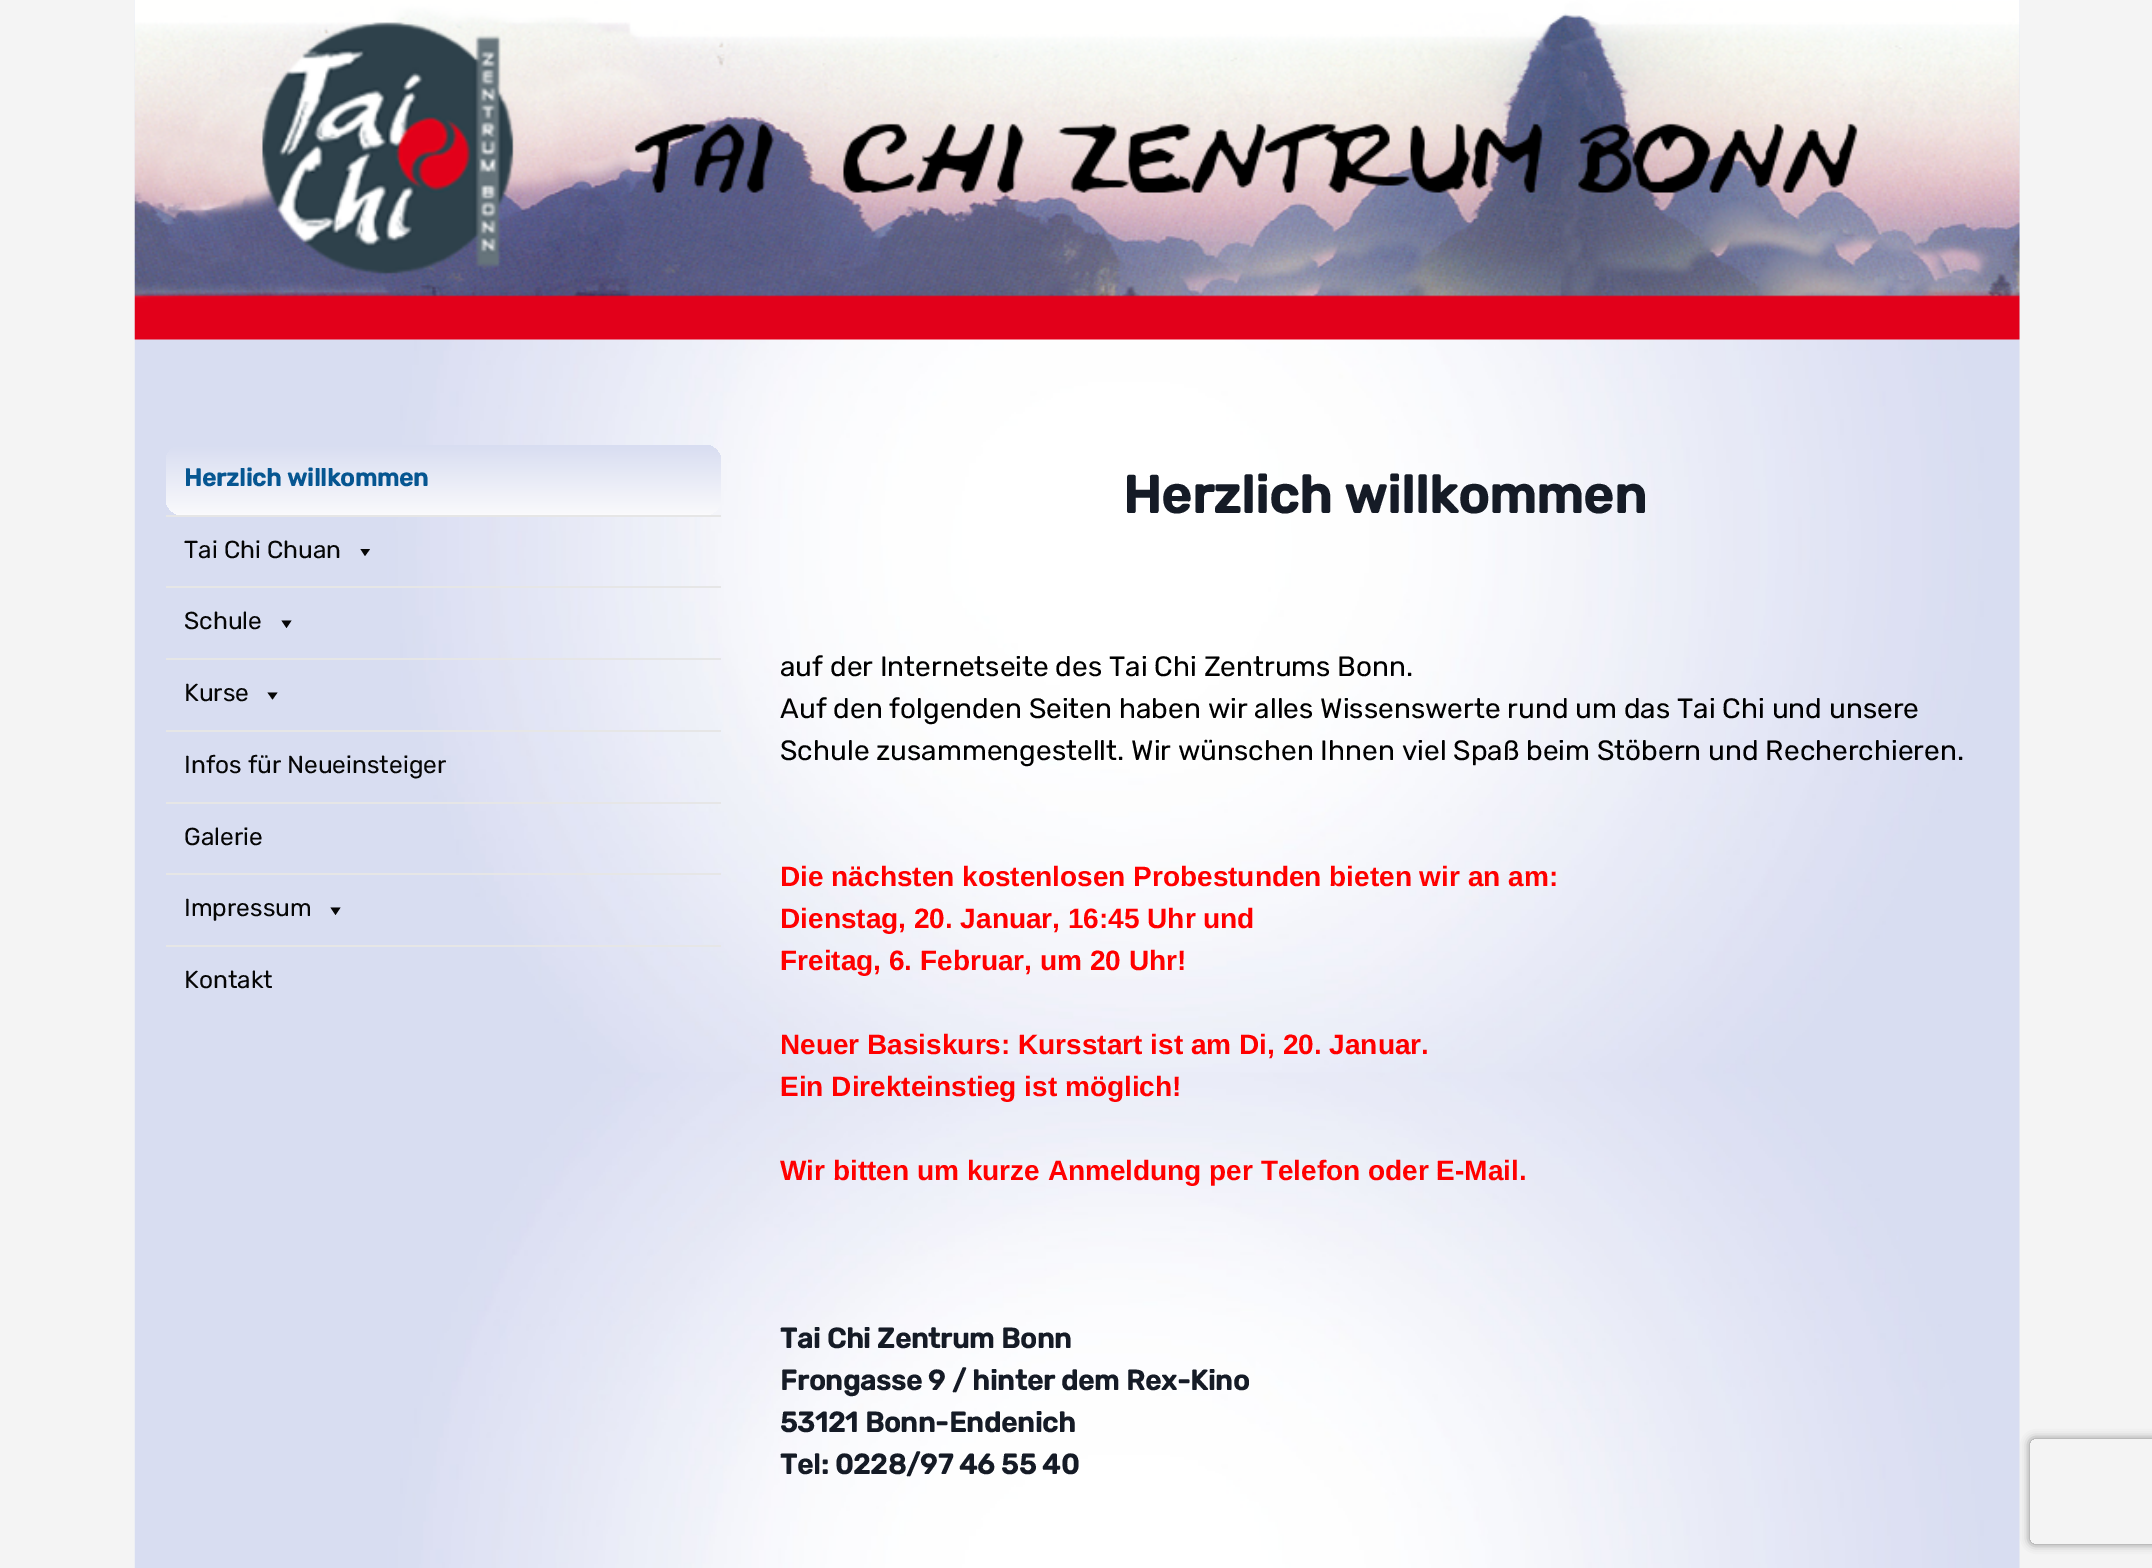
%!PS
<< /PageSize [2152 1568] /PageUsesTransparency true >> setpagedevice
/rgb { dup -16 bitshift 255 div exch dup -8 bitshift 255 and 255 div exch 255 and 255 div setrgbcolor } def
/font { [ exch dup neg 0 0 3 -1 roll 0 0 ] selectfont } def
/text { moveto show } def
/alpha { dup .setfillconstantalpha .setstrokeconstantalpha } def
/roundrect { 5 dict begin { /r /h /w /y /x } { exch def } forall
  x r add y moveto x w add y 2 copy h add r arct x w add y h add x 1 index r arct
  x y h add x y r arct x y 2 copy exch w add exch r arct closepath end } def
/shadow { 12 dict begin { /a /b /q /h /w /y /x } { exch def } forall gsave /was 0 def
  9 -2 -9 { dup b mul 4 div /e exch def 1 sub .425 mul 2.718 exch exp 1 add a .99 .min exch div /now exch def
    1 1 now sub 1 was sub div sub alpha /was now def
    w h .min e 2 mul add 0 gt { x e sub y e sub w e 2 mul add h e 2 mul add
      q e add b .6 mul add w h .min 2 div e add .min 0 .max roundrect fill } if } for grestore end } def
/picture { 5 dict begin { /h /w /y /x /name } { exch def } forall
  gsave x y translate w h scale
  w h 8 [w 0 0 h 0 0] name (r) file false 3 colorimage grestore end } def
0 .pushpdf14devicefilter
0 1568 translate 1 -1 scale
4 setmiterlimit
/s1 { /Rubik-Bold 24.5 font 16#065691 rgb } def
/s2 { /Rubik-Regular 24.5 font 16#060606 rgb } def
/s3 { /Rubik-Bold 52.5 font 16#151B26 rgb } def
/s4 { /Rubik-Regular 28 font 16#000000 rgb } def
/s5 { /LiberationSans-Bold 28 font 16#FF0000 rgb } def
/s6 { /Rubik-Bold 28 font 16#151B26 rgb } def
16#F4F4F4 rgb
0 0 2152 1568 rectfill
(pic2.raw) 134 0 1886 1568 picture
(pic1.raw) 134 0 1886 340 picture
16#E6E6E6 rgb
166 515 555 2 rectfill
gsave 166 445 555 70 16 roundrect clip newpath
<< /ShadingType 2 /ColorSpace /DeviceRGB /Coords [444 444 444 515] /Extend [true true] /Function << /FunctionType 2 /Domain [0 1] /C0 [0.847 0.867 0.945] /C1 [0.98 0.98 0.988] /N 1 >> >> shfill grestore
s1
(Herzlich willkommen) 184 486 text
16#E6E6E6 rgb
166 586 555 2 rectfill
s2
(Tai Chi Chuan) 184 558 text
370 549 moveto 365 556 lineto 360.5 549 lineto closepath fill
16#E6E6E6 rgb
166 658 555 2 rectfill
s2
(Schule) 184 629 text
291.5 620.5 moveto 286.5 628 lineto 281.5 620.5 lineto closepath fill
16#E6E6E6 rgb
166 730 555 2 rectfill
s2
(Kurse) 184 701 text
277.5 692.5 moveto 272.5 699.5 lineto 267.5 692.5 lineto closepath fill
16#E6E6E6 rgb
166 802 555 2 rectfill
s2
(Infos für Neueinsteiger) 184 773 text
16#E6E6E6 rgb
166 873 555 2 rectfill
s2
(Galerie) 184 845 text
16#E6E6E6 rgb
166 945 555 2 rectfill
s2
(Impressum) 184 916 text
340.5 907.5 moveto 335.5 915 lineto 330.5 907.5 lineto closepath fill
(Kontakt) 184 988 text
s3
(Herzlich willkommen) 1123 513 text
s4
(auf der Internetseite des Tai Chi Zentrums Bonn.) 780 676 text
(Auf den folgenden Seiten haben wir alles Wissenswerte rund um das Tai Chi und unsere) 780 718 text
(Schule zusammengestellt. Wir wünschen Ihnen viel Spaß beim Stöbern und Recherchieren.) 780 760 text
s5
(Die nächsten kostenlosen Probestunden bieten wir an am:) 780 886 text
(Dienstag, 20. Januar, 16:45 Uhr und) 780 928 text
(Freitag, 6. Februar, um 20 Uhr!) 780 970 text
(Neuer Basiskurs: Kursstart ist am Di, 20. Januar.) 780 1054 text
(Ein Direkteinstieg ist möglich!) 780 1096 text
(Wir bitten um kurze Anmeldung per Telefon oder E-Mail.) 780 1180 text
s6
(Tai Chi Zentrum Bonn) 780 1348 text
(Frongasse 9 / hinter dem Rex-Kino) 780 1390 text
(53121 Bonn-Endenich) 780 1432 text
(Tel: 0228/97 46 55 40) 780 1474 text
gsave
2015 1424 moveto 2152 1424 lineto 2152 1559 lineto 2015 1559 lineto closepath 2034 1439 moveto 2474 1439 lineto 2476 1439 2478 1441 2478 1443 curveto 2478 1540 lineto 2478 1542 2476 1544 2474 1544 curveto 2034 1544 lineto 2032 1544 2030 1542 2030 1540 curveto 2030 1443 lineto 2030 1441 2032 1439 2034 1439 curveto closepath eoclip newpath
16#808080 rgb
2030 1439 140 105 4 4.5 1 shadow
grestore
.poppdf14devicefilter showpage
